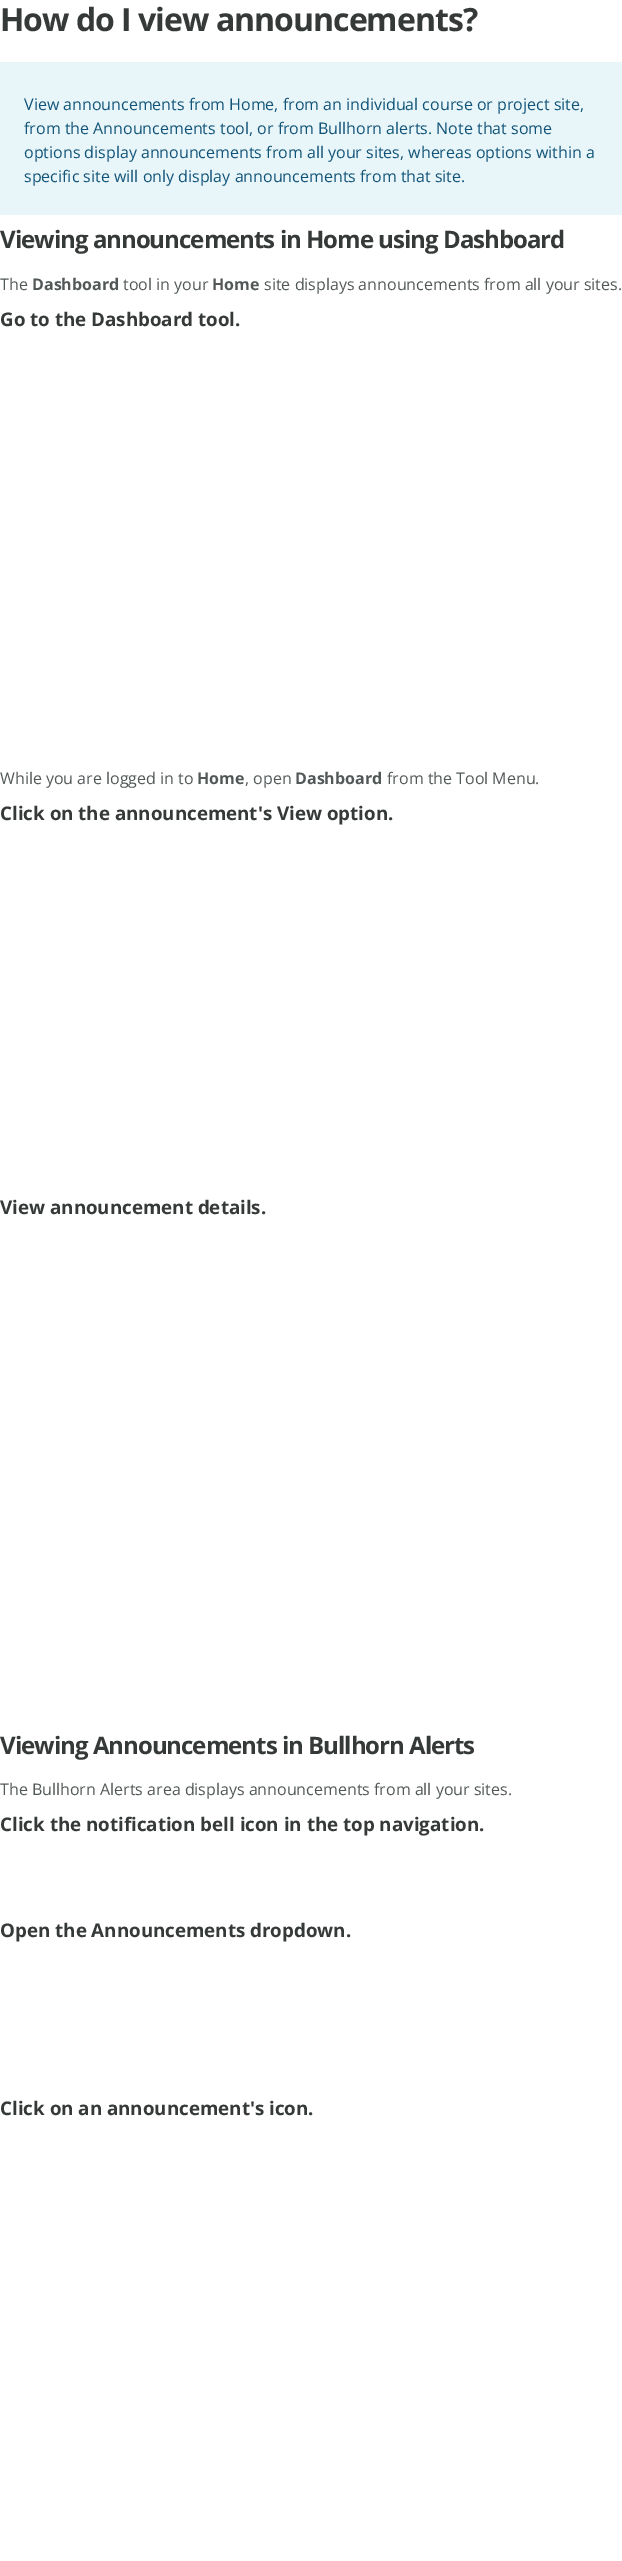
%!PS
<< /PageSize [622 2561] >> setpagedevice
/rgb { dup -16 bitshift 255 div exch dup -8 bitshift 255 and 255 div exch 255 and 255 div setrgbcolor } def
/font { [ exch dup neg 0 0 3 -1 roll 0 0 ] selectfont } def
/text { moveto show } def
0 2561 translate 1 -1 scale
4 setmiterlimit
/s1 { /OpenSans-Regular 16 font 16#115478 rgb } def
/s2 { /OpenSans-Regular 16 font 16#515857 rgb } def
/s3 { /OpenSans-Bold 16 font 16#515857 rgb } def
/s4 { /OpenSans-Bold 18.75 font 16#353938 rgb } def
16#FFFFFF rgb
0 0 622 2561 rectfill
/OpenSans-Bold 32 font
16#353938 rgb
0 31 moveto -1 0 (How do I view announcements?) ashow
16#E8F5F9 rgb
0 62 622 153 rectfill
s1
(View announcements from Home, from an individual course or project site,) 24 110 text
(from the Announcements tool, or from Bullhorn alerts. Note that some) 24 134 text
(options display announcements from all your sites, whereas options within a) 24 158 text
(specific site will only display announcements from that site.) 24 182 text
/OpenSans-Bold 24 font
16#353938 rgb
0 248 moveto -1 0 (Viewing announcements in Home using Dashboard) ashow
s2
(The) 0 290 text
s3
(Dashboard) 32 290 text
s2
(tool in your) 123 290 text
s3
(Home) 212 290 text
s2
(site displays announcements from all your sites.) 264 290 text
s4
(Go to the Dashboard tool.) 0 326 text
s2
(While you are logged in to) 0 784 text
s3
(Home) 197 784 text
s2
(, open) 245 784 text
s3
(Dashboard) 295 784 text
s2
(from the Tool Menu.) 387 784 text
s4
(Click on the announcement's View option.) 0 820 text
(View announcement details.) 0 1214 text
/OpenSans-Bold 24 font
0 1754 moveto -1 0 (Viewing Announcements in Bullhorn Alerts) ashow
s2
(The Bullhorn Alerts area displays announcements from all your sites.) 0 1795 text
s4
(Click the notification bell icon in the top navigation.) 0 1831 text
(Open the Announcements dropdown.) 0 1937 text
(Click on an announcement's icon.) 0 2115 text
showpage
